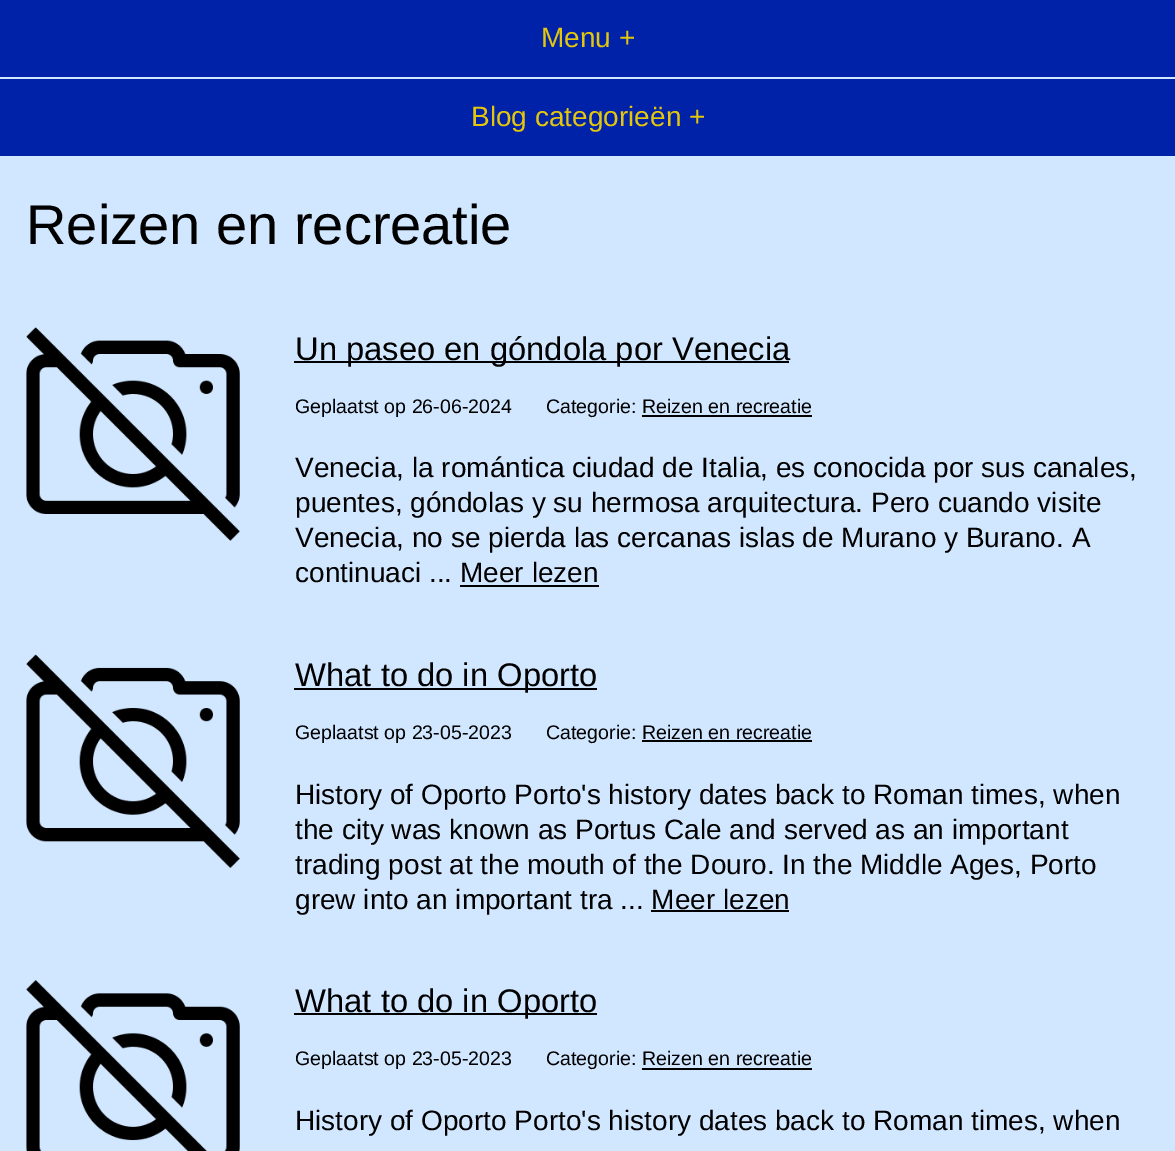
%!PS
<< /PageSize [1175 1151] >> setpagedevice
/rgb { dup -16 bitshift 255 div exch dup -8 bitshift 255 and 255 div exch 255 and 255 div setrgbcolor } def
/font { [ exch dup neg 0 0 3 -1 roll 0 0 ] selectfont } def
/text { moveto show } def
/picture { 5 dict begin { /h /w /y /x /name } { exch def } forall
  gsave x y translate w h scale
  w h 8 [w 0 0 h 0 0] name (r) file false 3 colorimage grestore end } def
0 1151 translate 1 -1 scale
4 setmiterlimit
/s1 { /LiberationSans-Regular 28 font 16#E4C70C rgb } def
/s2 { /LiberationSans-Regular 56 font 16#000000 rgb } def
/s3 { /LiberationSans-Regular 32.75 font 16#000000 rgb } def
/s4 { /LiberationSans-Regular 19.6 font 16#000000 rgb } def
/s5 { /LiberationSans-Regular 28 font 16#000000 rgb } def
16#D1E7FF rgb
0 0 1175 1151 rectfill
16#0022A8 rgb
0 0 1175 77 rectfill
s1
(Menu +) 541 47 text
16#0022A8 rgb
0 79 1175 77 rectfill
s1
(Blog categorieën +) 471 126 text
s2
(Reizen en recreatie) 26 244 text
(pic1.raw) 26 327 214 214 picture
294 361 495 2 rectfill
s3
(Un paseo en góndola por Venecia) 295 360 text
s4
(Geplaatst op 26-06-2024) 295 413 text
(Categorie: Reizen en recreatie) 546 413 text
642 415 170 2 rectfill
s5
(Venecia, la romántica ciudad de Italia, es conocida por sus canales,) 295 477 text
(puentes, góndolas y su hermosa arquitectura. Pero cuando visite) 295 512 text
(Venecia, no se pierda las cercanas islas de Murano y Burano. A) 295 547 text
(continuaci ... Meer lezen) 295 582 text
460 585 139 2 rectfill
(pic2.raw) 26 654 214 214 picture
294 688 303 2 rectfill
s3
(What to do in Oporto) 295 686 text
s4
(Geplaatst op 23-05-2023) 295 739 text
(Categorie: Reizen en recreatie) 546 739 text
642 740 170 2 rectfill
s5
(History of Oporto Porto's history dates back to Roman times, when) 295 804 text
(the city was known as Portus Cale and served as an important) 295 839 text
(trading post at the mouth of the Douro. In the Middle Ages, Porto) 295 874 text
(grew into an important tra ... Meer lezen) 295 909 text
651 910 138 2 rectfill
(pic3.raw) 26 980 214 171 picture
294 1013 303 2 rectfill
s3
(What to do in Oporto) 295 1012 text
s4
(Geplaatst op 23-05-2023) 295 1065 text
(Categorie: Reizen en recreatie) 546 1065 text
642 1068 170 2 rectfill
s5
(History of Oporto Porto's history dates back to Roman times, when) 295 1130 text
showpage
